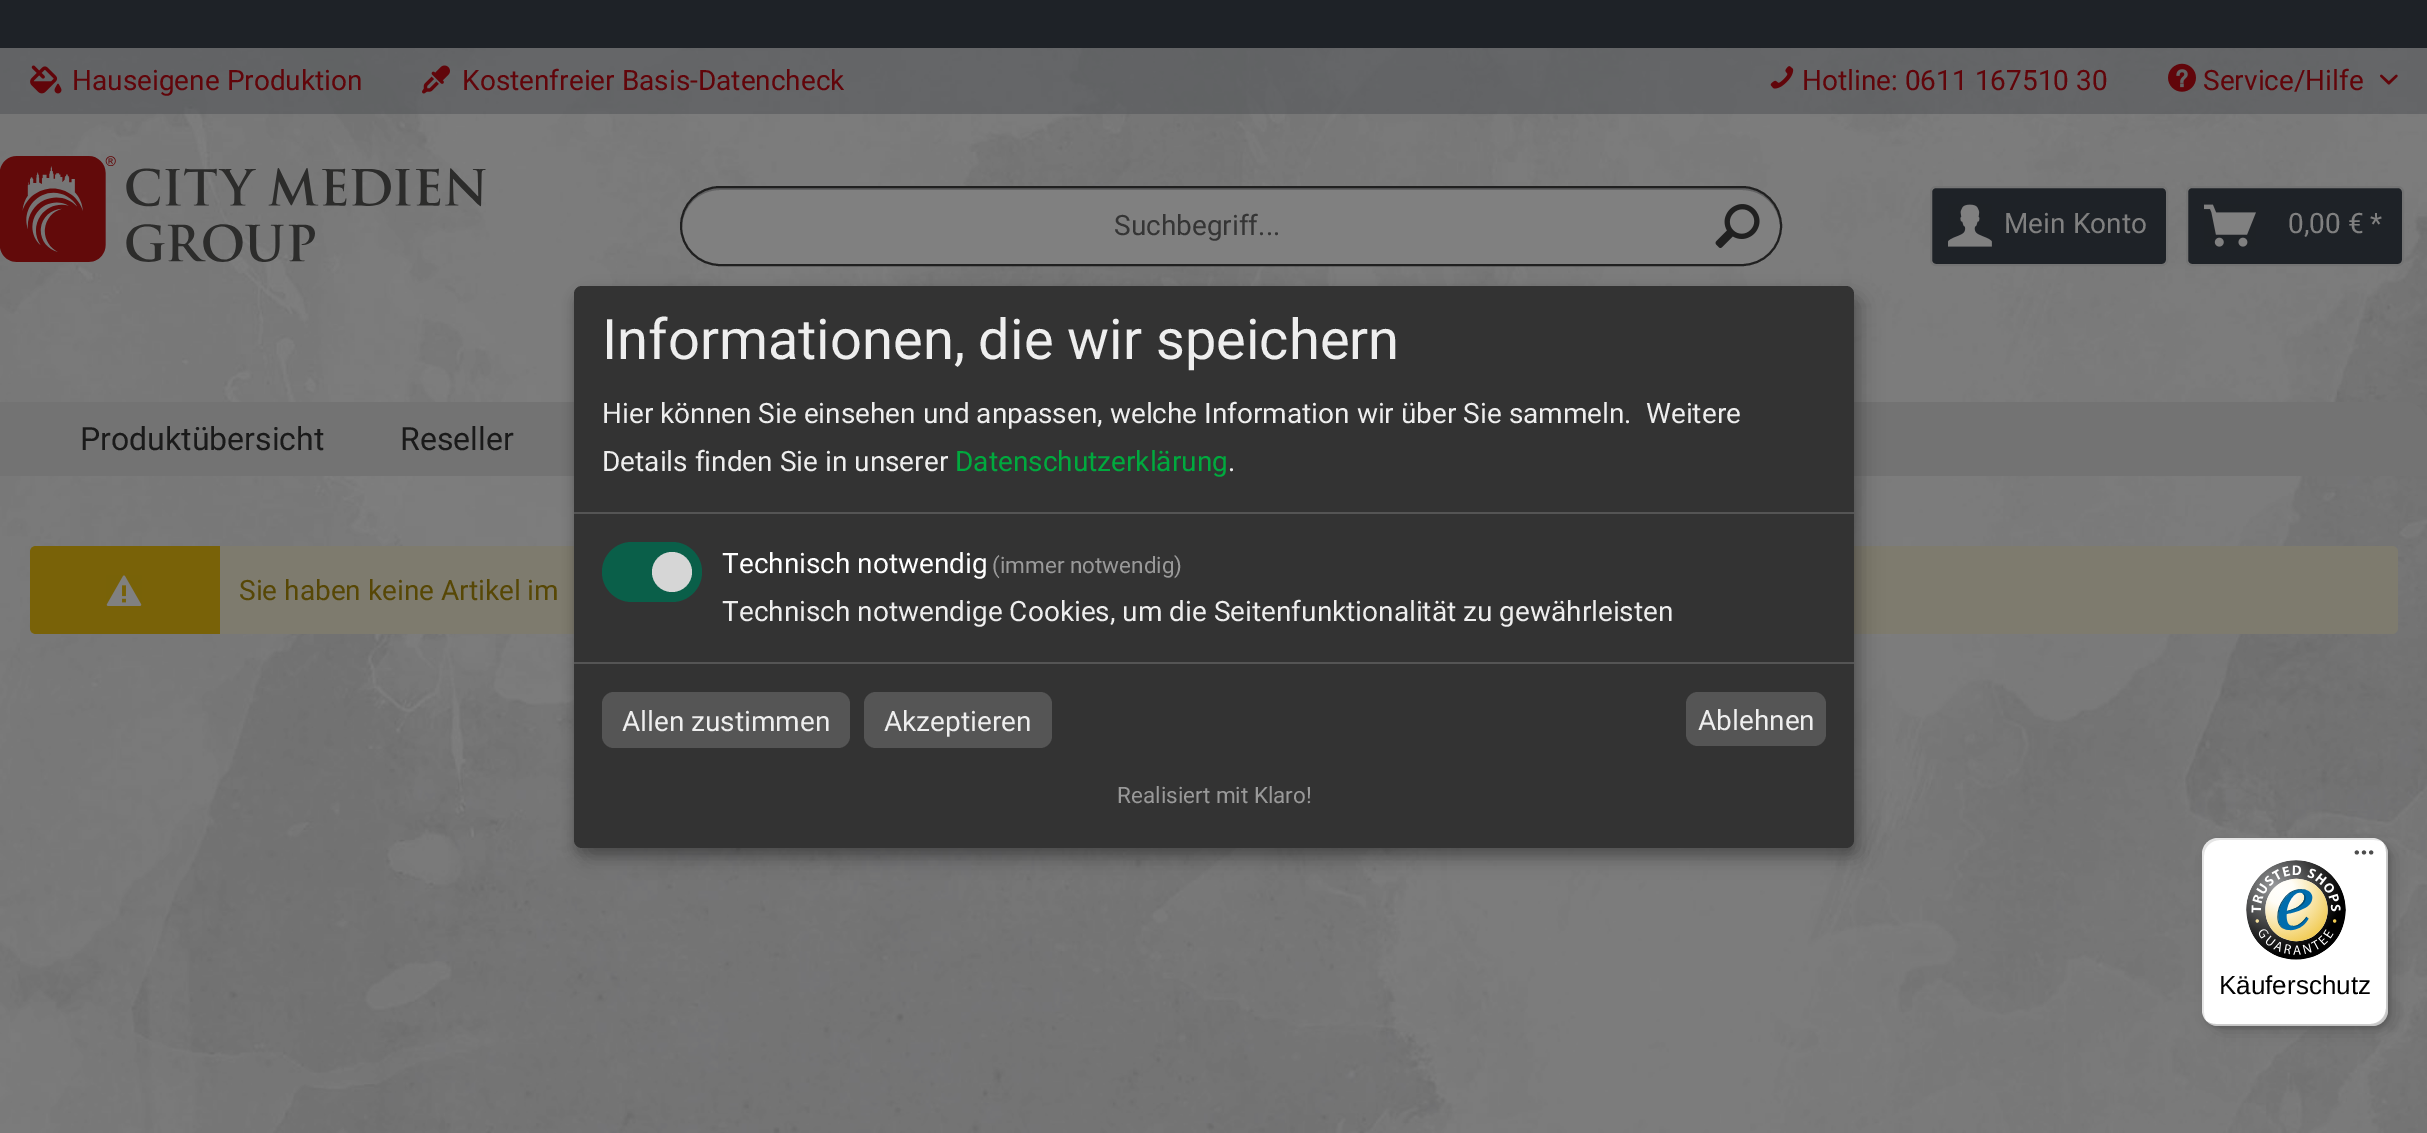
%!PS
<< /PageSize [2427 1133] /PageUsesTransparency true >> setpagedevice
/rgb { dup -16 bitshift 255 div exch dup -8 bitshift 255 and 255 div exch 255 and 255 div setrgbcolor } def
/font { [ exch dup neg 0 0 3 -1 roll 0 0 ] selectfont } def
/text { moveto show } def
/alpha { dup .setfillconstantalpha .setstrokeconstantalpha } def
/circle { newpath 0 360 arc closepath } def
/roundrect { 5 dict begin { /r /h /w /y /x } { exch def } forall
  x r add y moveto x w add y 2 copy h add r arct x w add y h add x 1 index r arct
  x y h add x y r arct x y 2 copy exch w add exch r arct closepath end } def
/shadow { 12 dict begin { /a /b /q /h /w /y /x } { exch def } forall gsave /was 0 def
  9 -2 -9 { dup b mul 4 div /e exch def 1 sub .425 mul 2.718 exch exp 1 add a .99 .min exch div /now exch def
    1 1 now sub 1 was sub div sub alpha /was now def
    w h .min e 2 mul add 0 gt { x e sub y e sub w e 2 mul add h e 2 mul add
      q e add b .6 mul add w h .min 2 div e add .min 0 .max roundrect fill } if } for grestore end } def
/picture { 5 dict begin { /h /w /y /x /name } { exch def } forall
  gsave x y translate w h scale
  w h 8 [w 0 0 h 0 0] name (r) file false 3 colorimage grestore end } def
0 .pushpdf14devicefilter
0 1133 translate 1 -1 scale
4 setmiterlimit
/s1 { /Roboto-Regular 28 font 16#61050A rgb } def
/s2 { /Roboto-Regular 28 font 16#353535 rgb } def
/s3 { /Roboto-Regular 28 font 16#808080 rgb } def
/s4 { /Roboto-Regular 32 font 16#1A1A1A rgb } def
/s5 { /Roboto-Regular 28 font 16#574705 rgb } def
/s6 { /Roboto-Regular 56 font 16#EEEEEE rgb } def
/s7 { /Roboto-Regular 28 font 16#EEEEEE rgb } def
/s8 { /Roboto-Regular 28 font 16#00AA3E rgb } def
/s9 { /Roboto-Regular 28 font 16#FFFFFF rgb } def
/s10 { /Roboto-Regular 22.5 font 16#999999 rgb } def
/s11 { /LiberationSans-Regular 26 font 16#000000 rgb } def
16#FFFFFF rgb
0 0 2427 1133 rectfill
(pic1.raw) 0 48 2427 1085 picture
16#1E2227 rgb
0 0 2427 48 rectfill
0.6 alpha
16#55575A rgb
0 48 2427 66 rectfill
1 alpha
(pic2.raw) 30 65 32 29 picture
s1
(Hauseigene Produktion) 72 90 text
(pic3.raw) 422 65 28 29 picture
(Kostenfreier Basis-Datencheck) 462 90 text
(pic4.raw) 1770 66 24 23 picture
(Hotline: 0611 167510 30) 1802 90 text
(pic5.raw) 2168 63 28 29 picture
(Service/Hilfe) 2203 90 text
(pic6.raw) 2380 74 18 11 picture
(pic7.raw) 0 156 486 106 picture
16#808080 rgb
680 186 1102 80 40 roundrect fill
16#626263 rgb
720 190 moveto 1742 190 lineto 1763 190 1779 206 1780 227 curveto 1780 226 lineto 1780 205 1763 188 1742 188 curveto 720 188 lineto 699 188 682 205 682 226 curveto 682 227 lineto 683 206 699 190 720 190 curveto closepath fill
16#202020 rgb
2 setlinewidth
681 187 1100 78 39 roundrect stroke
s2
(Suchbegriff...) 1114 235 text
(pic8.raw) 1715 204 45 44 picture
16#1E2227 rgb
1931 187 236 78 5 roundrect gsave fill grestore
16#747474 rgb
stroke
(pic9.raw) 1948 204 44 43 picture
s3
(Mein Konto) 2004 233 text
16#1E2227 rgb
2187 187 216 78 5 roundrect gsave fill grestore
16#747474 rgb
stroke
(pic10.raw) 2204 204 52 43 picture
s3
(0,00 € *) 2288 233 text
16#737373 rgb
0 402 moveto 2404 402 lineto 2417.5 402 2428 412.5 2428 426 curveto 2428 476 lineto 0 476 lineto closepath fill
s4
(Produktübersicht) 80 450 text
(Reseller) 400 450 text
16#7E7B6E rgb
30 546 2368 88 6 roundrect fill
16#796208 rgb
36 546 moveto 220 546 lineto 220 634 lineto 36 634 lineto 32.5 634 30 631.5 30 628 curveto 30 552 lineto 30 548.5 32.5 546 36 546 curveto closepath fill
(pic11.raw) 106 575 36 31 picture
s5
(Sie haben keine Artikel im) 239 600 text
16#000000 rgb
584 296 1280 562 8 10 0.19 shadow
574 294 1280 562 8 6 0.2 shadow
16#333333 rgb
574 286 1280 562 8 roundrect fill
16#555555 rgb
574 512 1280 2 rectfill
s6
(Informationen, die wir speichern) 602 359 text
s7
(Hier können Sie einsehen und anpassen, welche Information wir über Sie sammeln.) 602 423 text
(Weitere) 1646 423 text
(Details finden Sie in unserer) 602 471 text
s8
(Datenschutzerklärung) 955 471 text
s7
(.) 1228 471 text
16#0A5F49 rgb
602 542 100 60 30 roundrect fill
16#D6D6D6 rgb
672 572 20 circle fill
s9
(Technisch notwendig) 722 573 text
s10
(\(immer notwendig\)) 992 573 text
s7
(Technisch notwendige Cookies, um die Seitenfunktionalität zu gewährleisten) 722 621 text
16#555555 rgb
574 662 1280 2 rectfill
602 692 248 56 12 roundrect fill
s7
(Allen zustimmen) 622 731 text
16#555555 rgb
864 692 188 56 12 roundrect fill
s7
(Akzeptieren) 884 731 text
16#555555 rgb
1686 692 140 54 12 roundrect fill
s7
(Ablehnen) 1698 730 text
s10
(Realisiert mit Klaro!) 1117 803 text
16#000000 rgb
2208 844 186 188 16 8 0.15 shadow
2204 840 186 188 16 2 0.15 shadow
16#FFFFFF rgb
2202 838 186 188 16 roundrect fill
0.1 alpha
16#000000 rgb
2220 840 moveto 2374 840 lineto 2378 840 2381 841 2384 843 curveto 2381 840 2377 838 2372 838 curveto 2218 838 lineto 2209 838 2202 845 2202 854 curveto 2202 1010 lineto 2202 1015 2204 1019 2207 1022 curveto 2205 1019 2204 1016 2204 1012 curveto 2204 856 lineto 2204 847 2211 840 2220 840 curveto closepath fill
0.2 alpha
2206 1021 moveto 2209 1024 2213 1026 2218 1026 curveto 2372 1026 lineto 2381 1026 2388 1019 2388 1010 curveto 2388 854 lineto 2388 849 2386 845 2383 842 curveto 2385 845 2386 848 2386 852 curveto 2386 1008 lineto 2386 1017 2379 1024 2370 1024 curveto 2216 1024 lineto 2212 1024 2209 1023 2206 1021 curveto closepath fill
16#323232 rgb
2207 1021 moveto 2210 1024 2214 1026 2218 1026 curveto 2372 1026 lineto 2381 1026 2388 1019 2388 1010 curveto 2388 854 lineto 2388 850 2386 846 2383 843 curveto 2386 846 2387 849 2387 853 curveto 2387 1009 lineto 2387 1018 2380 1025 2371 1025 curveto 2217 1025 lineto 2213 1025 2210 1024 2207 1021 curveto closepath fill
0.3 alpha
16#FFFFFF rgb
2207 1021 moveto 2210 1024 2214 1026 2218 1026 curveto 2372 1026 lineto 2381 1026 2388 1019 2388 1010 curveto 2388 854 lineto 2388 850 2386 846 2383 843 curveto 2386 846 2387 849 2387 853 curveto 2387 1009 lineto 2387 1018 2380 1025 2371 1025 curveto 2217 1025 lineto 2213 1025 2210 1024 2207 1021 curveto closepath fill
1 alpha
(pic12.raw) 2354 850 20 5 picture
(pic13.raw) 2246 860 100 100 picture
s11
(Käuferschutz) 2219 994 text
.poppdf14devicefilter showpage
